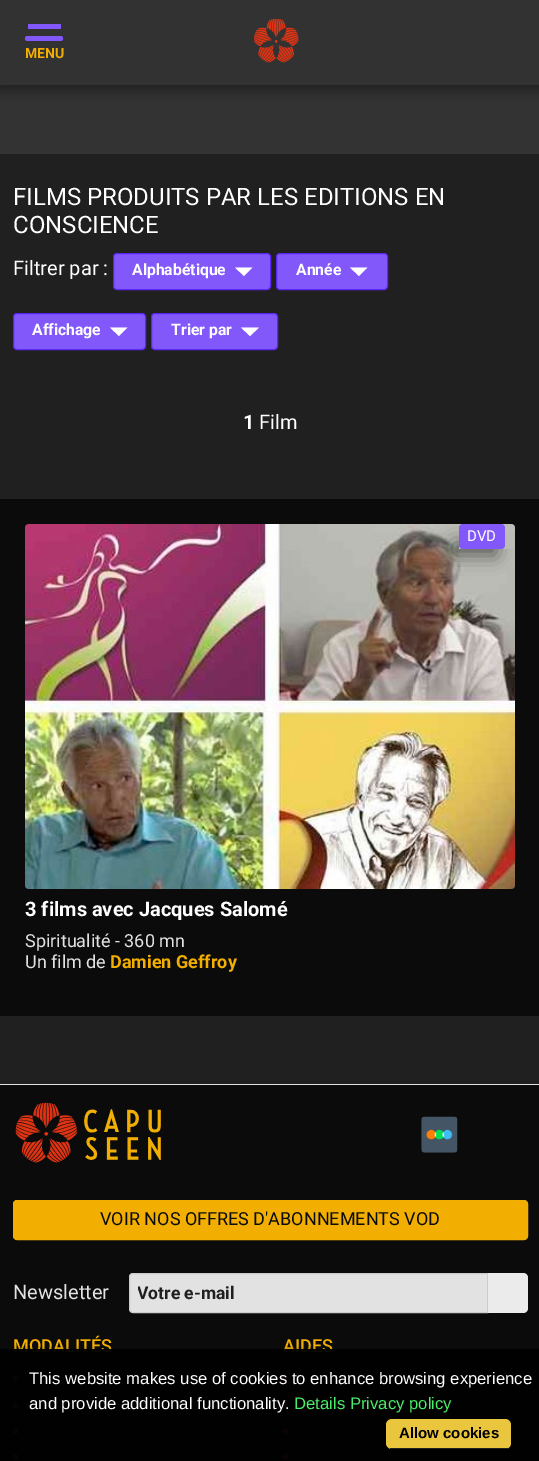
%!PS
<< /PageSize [539 1461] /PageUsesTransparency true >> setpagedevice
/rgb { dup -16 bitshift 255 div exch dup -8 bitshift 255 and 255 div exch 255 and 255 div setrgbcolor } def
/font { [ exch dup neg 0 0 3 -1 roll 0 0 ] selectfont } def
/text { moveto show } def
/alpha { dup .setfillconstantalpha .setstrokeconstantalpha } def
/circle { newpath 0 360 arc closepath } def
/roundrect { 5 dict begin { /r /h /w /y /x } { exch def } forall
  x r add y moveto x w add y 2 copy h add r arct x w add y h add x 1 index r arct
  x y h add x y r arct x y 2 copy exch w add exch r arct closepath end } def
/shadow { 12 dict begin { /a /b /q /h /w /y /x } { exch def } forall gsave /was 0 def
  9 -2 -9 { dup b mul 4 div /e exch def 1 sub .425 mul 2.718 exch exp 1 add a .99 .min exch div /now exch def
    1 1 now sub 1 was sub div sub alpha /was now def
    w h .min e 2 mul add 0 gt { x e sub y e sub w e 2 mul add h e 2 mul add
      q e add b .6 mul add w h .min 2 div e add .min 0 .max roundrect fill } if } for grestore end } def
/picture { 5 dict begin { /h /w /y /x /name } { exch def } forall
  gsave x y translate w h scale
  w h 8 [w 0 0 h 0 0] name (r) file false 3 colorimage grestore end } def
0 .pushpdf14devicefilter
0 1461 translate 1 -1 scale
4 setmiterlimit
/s1 { /Roboto-Bold 14 font 16#F2AF01 rgb } def
/s2 { /Roboto-Regular 24 font 16#FFFFFF rgb } def
/s3 { /Roboto-Regular 20 font 16#FFFFFF rgb } def
/s4 { /Roboto-Bold 15.75 font 16#FFFFFF rgb } def
/s5 { /Roboto-Bold 20 font 16#FFFFFF rgb } def
/s6 { /Roboto-Regular 15 font 16#FFFFFF rgb } def
/s7 { /Roboto-Regular 18 font 16#E2E2E2 rgb } def
/s8 { /Roboto-Bold 18 font 16#F2AF01 rgb } def
/s9 { /Roboto-Regular 18 font 16#0B0B0B rgb } def
/s10 { /Roboto-Regular 20 font 16#E2E2E2 rgb } def
/s11 { /Roboto-Bold 17.5 font 16#202020 rgb } def
/s12 { /Roboto-Medium 18 font 16#F2AF01 rgb } def
/s13 { /LiberationSans-Regular 16.7 font 16#FFFFFF rgb } def
/s14 { /LiberationSans-Regular 16.7 font 16#4BEC69 rgb } def
/s15 { /LiberationSans-Bold 15 font 16#000000 rgb } def
16#202020 rgb
0 0 539 1461 rectfill
16#333333 rgb
0 85 539 69 rectfill
16#000000 rgb
-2 0 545 90 0 5.5 0.35 shadow
16#323232 rgb
0 0 539 85 rectfill
16#8258FA rgb
28 24 33 5 rectfill
25 36 38 5 2.5 roundrect fill
s1
(MENU) 25 58 text
(pic1.raw) 254 19 45 44 picture
s2
(FILMS PRODUITS PAR LES EDITIONS EN) 13 205 text
(CONSCIENCE) 13 233 text
s3
(Filtrer par :) 13 275 text
16#8258FA rgb
113.5 253.5 157 36 3.5 roundrect gsave fill grestore
16#5D26F9 rgb
stroke
s4
(Alphabétique) 132 275 text
235 267.5 moveto 252.5 267.5 lineto 244 276 lineto closepath fill
16#8258FA rgb
276.5 253.5 111 36 3.5 roundrect gsave fill grestore
16#5D26F9 rgb
stroke
s4
(Année) 296 275 text
350 267.5 moveto 367.5 267.5 lineto 359 276 lineto closepath fill
16#8258FA rgb
13.5 313.5 132 36 3.5 roundrect gsave fill grestore
16#5D26F9 rgb
stroke
s4
(Affichage) 32 335 text
110 327.5 moveto 127.5 327.5 lineto 119 336 lineto closepath fill
16#8258FA rgb
151.5 313.5 126 36 3.5 roundrect gsave fill grestore
16#5D26F9 rgb
stroke
s4
(Trier par) 171 335 text
241 327.5 moveto 259 327.5 lineto 250 336 lineto closepath fill
s5
(1) 243 429 text
s3
(Film) 259 429 text
16#0B0B0B rgb
0 499 539 517 rectfill
(pic2.raw) 25 524 490 365 picture
gsave
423 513 moveto 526 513 lineto 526 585 lineto 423 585 lineto closepath 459 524 moveto 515 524 lineto 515 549 lineto 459 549 lineto closepath eoclip newpath
16#000000 rgb
453 543 43 12 0 9.5 0.53 shadow
grestore
16#8258FA rgb
459 524 46 25 4 roundrect fill
s6
(DVD) 467 541 text
s5
(3 films avec Jacques Salomé) 25 916 text
s7
(Spiritualité - 360 mn) 25 947 text
(Un film de) 25 968 text
s8
(Damien Geffroy) 110 968 text
16#0B0B0B rgb
0 1085 539 376 rectfill
16#E2E2E2 rgb
0 1084 539 1 rectfill
(pic3.raw) 15 1102 146 61 picture
(pic4.raw) 421 1116 37 37 picture
16#F2AF01 rgb
13.5 1200.5 514 39 3.5 roundrect gsave fill grestore
stroke
s9
(VOIR NOS OFFRES D'ABONNEMENTS VOD) 100 1225 text
s10
(Newsletter) 13 1299 text
133 1273.5 moveto 487.5 1273.5 lineto 487.5 1312.5 lineto 133 1312.5 lineto 131 1312.5 129.5 1311 129.5 1309 curveto 129.5 1277 lineto 129.5 1275 131 1273.5 133 1273.5 curveto closepath gsave fill grestore
16#CCCCCC rgb
stroke
gsave
138 1283 341 20 rectclip
s11
(Votre e-mail) 137 1299 text
grestore
16#EBEBEB rgb
488 1273 moveto 523 1273 lineto 526 1273 528 1275 528 1278 curveto 528 1308 lineto 528 1311 526 1313 523 1313 curveto 488 1313 lineto closepath fill
s12
(MODALITÉS) 13 1352 text
16#DE3414 rgb
15.5 1378.5 2.5 circle fill
15.5 1405.5 2.5 circle fill
15.5 1431.5 2.5 circle fill
15.5 1456.5 2.5 circle fill
s12
(AIDES) 283 1352 text
16#DE3414 rgb
285.5 1378.5 2.5 circle fill
285.5 1405.5 2.5 circle fill
285.5 1431.5 2.5 circle fill
285.5 1456.5 2.5 circle fill
gsave
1 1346 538 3 rectclip
16#000000 rgb
3 1351 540 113 0 3 0.6 shadow
grestore
0.95 alpha
16#000000 rgb
0 1349 539 112 rectfill
1 alpha
s13
(This website makes use of cookies to enhance browsing experience) 29 1384 text
(and provide additional functionality.) 29 1409 text
s14
(Details Privacy policy) 294 1409 text
16#EAC53E rgb
386 1419 125 30 6 roundrect fill
16#222222 rgb
390 1448 119 1 rectfill
s15
(Allow cookies) 399 1438 text
.poppdf14devicefilter showpage
